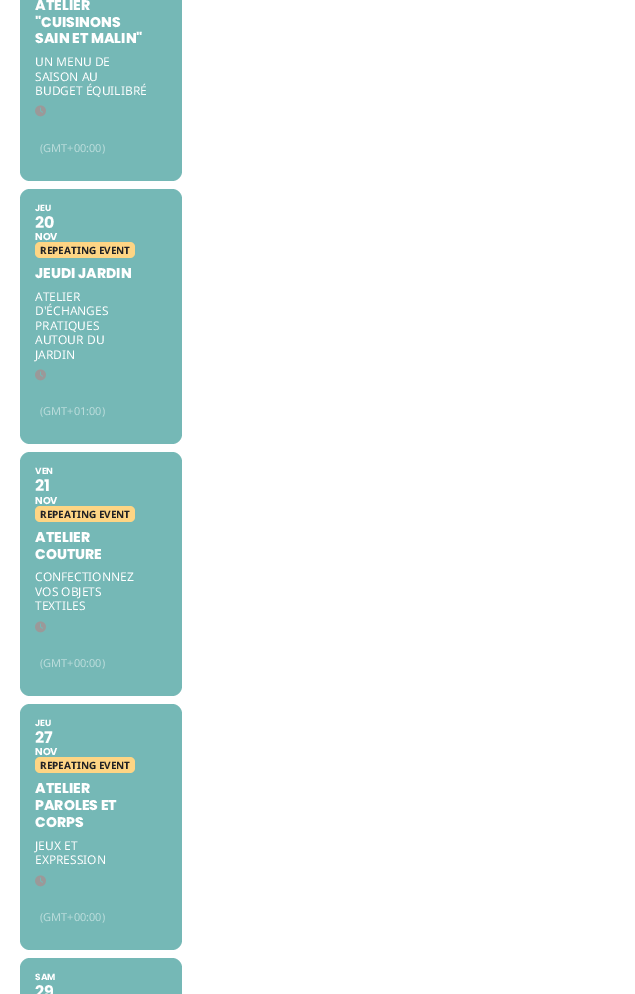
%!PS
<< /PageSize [635 994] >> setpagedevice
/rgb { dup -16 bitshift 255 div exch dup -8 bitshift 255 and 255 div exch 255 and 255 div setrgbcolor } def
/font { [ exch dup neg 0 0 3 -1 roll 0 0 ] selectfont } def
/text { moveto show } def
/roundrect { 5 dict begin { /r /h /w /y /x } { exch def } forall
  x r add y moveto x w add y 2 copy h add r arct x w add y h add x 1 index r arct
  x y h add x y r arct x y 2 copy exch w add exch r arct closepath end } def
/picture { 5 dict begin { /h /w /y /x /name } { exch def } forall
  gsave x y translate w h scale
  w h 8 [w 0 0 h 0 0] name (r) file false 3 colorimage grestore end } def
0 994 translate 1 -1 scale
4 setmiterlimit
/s1 { /Poppins-ExtraBold 14 font 16#FFFFFF rgb } def
/s2 { /NotoSans-Regular 12 font 16#FFFFFF rgb } def
/s3 { /NotoSans-Regular 11 font 16#BADCDB rgb } def
/s4 { /Poppins-Bold 9 font 16#FFFFFF rgb } def
/s5 { /Poppins-Bold 16 font 16#FFFFFF rgb } def
/s6 { /Poppins-Bold 10 font 16#FFFFFF rgb } def
/s7 { /NotoSans-Bold 10 font 16#202124 rgb } def
16#FFFFFF rgb
0 0 635 994 rectfill
16#75B8B6 rgb
20 -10 162 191 10 roundrect fill
s1
(ATELIER) 35 10 text
("CUISINONS) 35 27 text
(SAIN ET MALIN") 35 43 text
s2
(UN MENU DE) 35 66 text
(SAISON AU) 35 81 text
(BUDGET ÉQUILIBRÉ) 35 95 text
(pic1.raw) 35 105 11 12 picture
s3
(\(GMT+00:00\)) 40 152 text
16#75B8B6 rgb
20 189 162 255 10 roundrect fill
s4
(JEU) 35 211 text
s5
(20) 35 228 text
s6
(NOV) 35 240 text
16#FED584 rgb
35 242 100 16 5 roundrect fill
s7
(REPEATING EVENT) 40 254 text
s1
(JEUDI JARDIN) 35 278 text
s2
(ATELIER) 35 301 text
(D'ÉCHANGES) 35 315 text
(PRATIQUES) 35 330 text
(AUTOUR DU) 35 344 text
(JARDIN) 35 359 text
(pic1.raw) 35 369 11 12 picture
s3
(\(GMT+01:00\)) 40 415 text
16#75B8B6 rgb
20 452 162 244 10 roundrect fill
s4
(VEN) 35 474 text
s5
(21) 35 491 text
s6
(NOV) 35 504 text
16#FED584 rgb
35 506 100 16 5 roundrect fill
s7
(REPEATING EVENT) 40 518 text
s1
(ATELIER) 35 542 text
(COUTURE) 35 559 text
s2
(CONFECTIONNEZ) 35 581 text
(VOS OBJETS) 35 596 text
(TEXTILES) 35 610 text
(pic1.raw) 35 621 11 12 picture
s3
(\(GMT+00:00\)) 40 667 text
16#75B8B6 rgb
20 704 162 246 10 roundrect fill
s4
(JEU) 35 726 text
s5
(27) 35 743 text
s6
(NOV) 35 755 text
16#FED584 rgb
35 757 100 16 5 roundrect fill
s7
(REPEATING EVENT) 40 769 text
s1
(ATELIER) 35 793 text
(PAROLES ET) 35 810 text
(CORPS) 35 827 text
s2
(JEUX ET) 35 850 text
(EXPRESSION) 35 864 text
(pic1.raw) 35 875 11 12 picture
s3
(\(GMT+00:00\)) 40 921 text
16#75B8B6 rgb
20 958 162 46 10 roundrect fill
s4
(SAM) 35 980 text
s5
(29) 35 997 text
showpage
